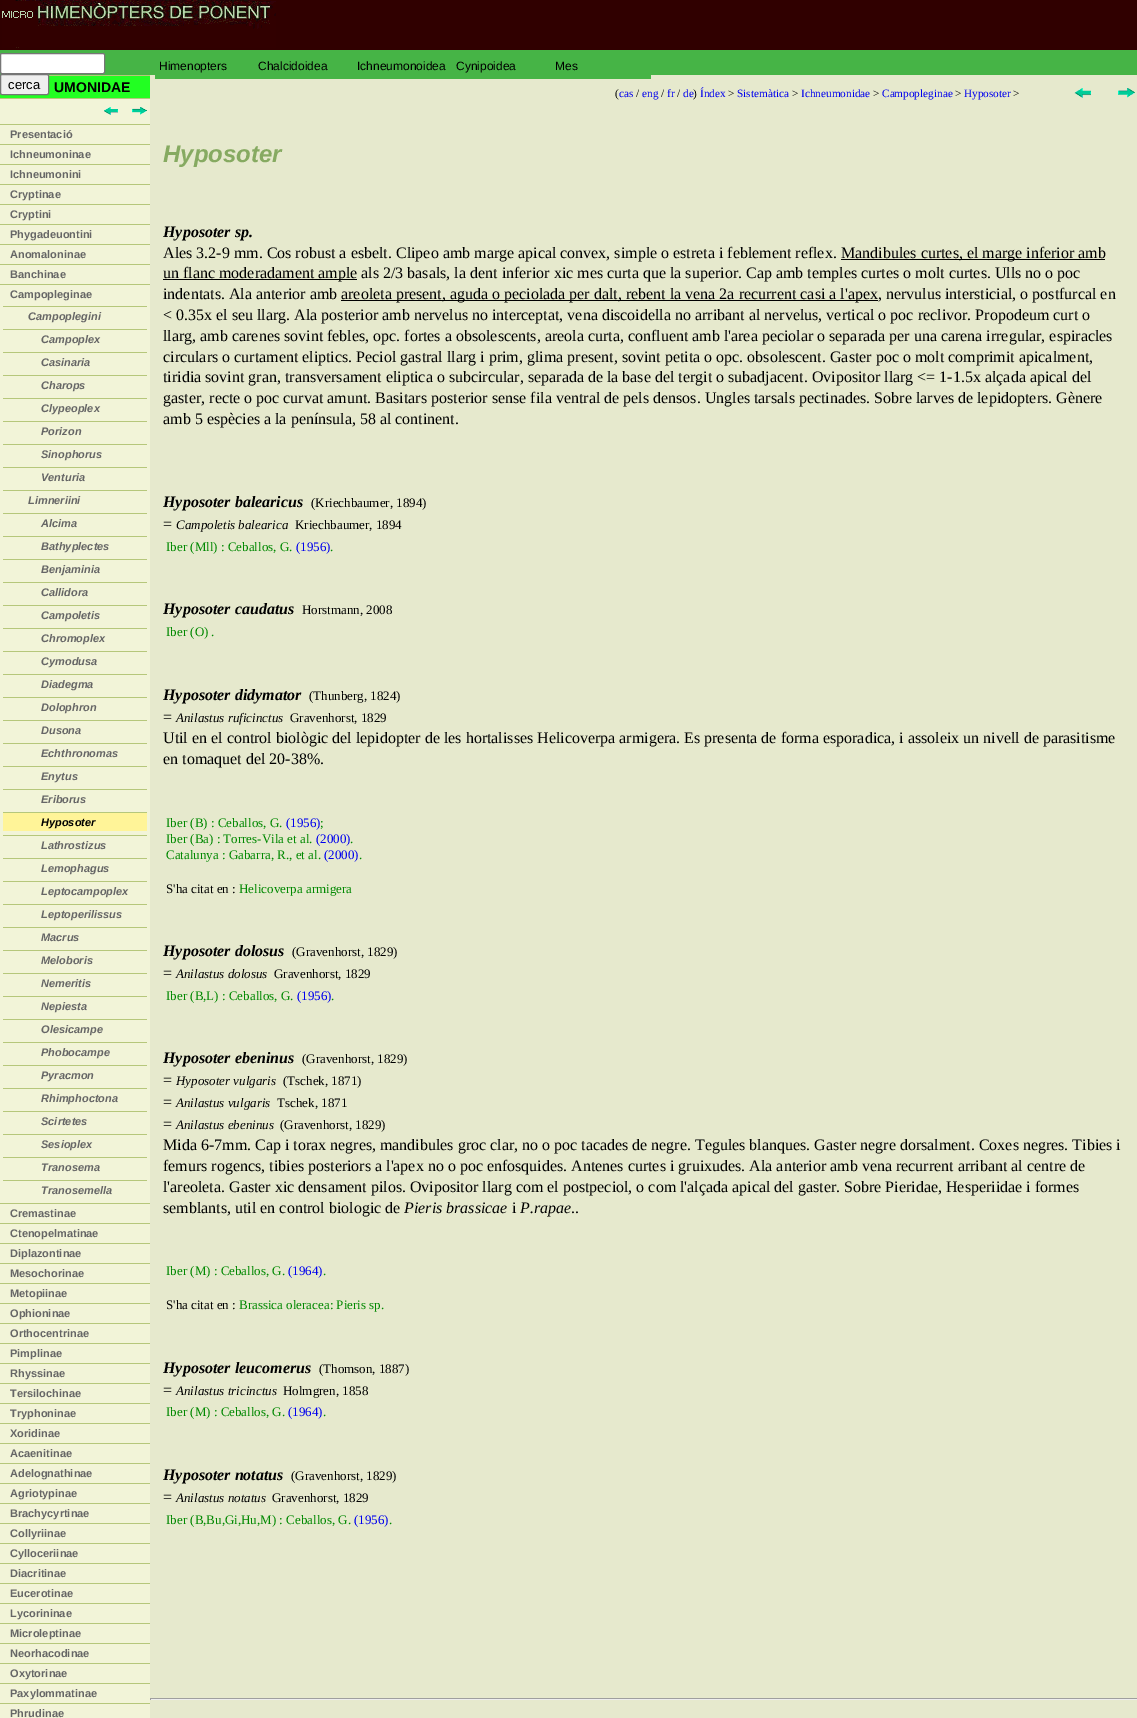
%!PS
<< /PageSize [1137 1718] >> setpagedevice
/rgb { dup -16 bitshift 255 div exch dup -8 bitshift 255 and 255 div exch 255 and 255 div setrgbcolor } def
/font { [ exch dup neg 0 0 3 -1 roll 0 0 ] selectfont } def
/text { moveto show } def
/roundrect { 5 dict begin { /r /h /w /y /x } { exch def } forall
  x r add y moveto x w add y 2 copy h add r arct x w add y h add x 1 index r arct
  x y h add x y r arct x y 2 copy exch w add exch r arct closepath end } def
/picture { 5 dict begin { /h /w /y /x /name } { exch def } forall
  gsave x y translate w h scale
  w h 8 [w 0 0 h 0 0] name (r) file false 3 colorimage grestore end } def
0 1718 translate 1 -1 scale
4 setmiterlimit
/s1 { /LiberationSans-Regular 12 font 16#000000 rgb } def
/s2 { /LiberationSans-Regular 13 font 16#000000 rgb } def
/s3 { /LiberationSans-Bold 14 font 16#000000 rgb } def
/s4 { /LiberationSans-Bold 11 font 16#666666 rgb } def
/s5 { /LiberationSans-BoldItalic 11 font 16#666666 rgb } def
/s6 { /LiberationSans-BoldItalic 11 font 16#000000 rgb } def
/s7 { /LiberationSerif-Regular 11.25 font 16#000000 rgb } def
/s8 { /LiberationSerif-Regular 11.25 font 16#0000EE rgb } def
/s9 { /LiberationSans-BoldItalic 24 font 16#86AA61 rgb } def
/s10 { /LiberationSerif-BoldItalic 16 font 16#000000 rgb } def
/s11 { /LiberationSerif-Regular 16 font 16#000000 rgb } def
/s12 { /LiberationSerif-Regular 13 font 16#000000 rgb } def
/s13 { /LiberationSerif-Italic 13 font 16#000000 rgb } def
/s14 { /LiberationSerif-Regular 13 font 16#008800 rgb } def
/s15 { /LiberationSerif-Regular 13 font 16#0000EE rgb } def
/s16 { /LiberationSerif-Italic 16 font 16#000000 rgb } def
16#300000 rgb
0 0 1137 1718 rectfill
16#E6E9CD rgb
150 75 987 1643 rectfill
16#46B446 rgb
155 75 496 4 rectfill
0 50 1137 25 rectfill
s1
(Himenopters) 159 70 text
(Chalcidoidea) 258 70 text
(Ichneumonoidea) 357 70 text
(Cynipoidea) 456 70 text
(Mes) 555 70 text
(pic1.raw) 2 0 274 48 picture
16#FFFFFF rgb
0.5 53.5 104 20 1.5 roundrect gsave fill grestore
16#767676 rgb
stroke
16#22FF22 rgb
0 76 150 22 rectfill
16#B6C77B rgb
0 75 150 1 rectfill
16#EFEFEF rgb
0.5 74.5 48 20 1.5 roundrect gsave fill grestore
16#767676 rgb
stroke
s2
(cerca) 8 89 text
16#F2F4D8 rgb
0 99 150 1619 rectfill
16#B6C77B rgb
0 98 150 1 rectfill
s3
(UMONIDAE) 54 92 text
(pic2.raw) 104 107 14 8 picture
(pic3.raw) 132 107 15 8 picture
16#B6C77B rgb
0 124 150 1 rectfill
s4
(Presentació) 10 138 text
16#B6C77B rgb
0 144 150 1 rectfill
s4
(Ichneumoninae) 10 158 text
16#B6C77B rgb
0 164 150 1 rectfill
s4
(Ichneumonini) 10 178 text
16#B6C77B rgb
0 184 150 1 rectfill
s4
(Cryptinae) 10 198 text
16#B6C77B rgb
0 204 150 1 rectfill
s4
(Cryptini) 10 218 text
16#B6C77B rgb
0 224 150 1 rectfill
s4
(Phygadeuontini) 10 238 text
16#B6C77B rgb
0 244 150 1 rectfill
s4
(Anomaloninae) 10 258 text
16#B6C77B rgb
0 264 150 1 rectfill
s4
(Banchinae) 10 278 text
16#B6C77B rgb
0 284 150 1 rectfill
s4
(Campopleginae) 10 298 text
16#B6C77B rgb
3 306 144 1 rectfill
s5
(Campoplegini) 28 320 text
16#B6C77B rgb
3 329 144 1 rectfill
s5
(Campoplex) 41 343 text
16#B6C77B rgb
3 352 144 1 rectfill
s5
(Casinaria) 41 366 text
16#B6C77B rgb
3 375 144 1 rectfill
s5
(Charops) 41 389 text
16#B6C77B rgb
3 398 144 1 rectfill
s5
(Clypeoplex) 41 412 text
16#B6C77B rgb
3 421 144 1 rectfill
s5
(Porizon) 41 435 text
16#B6C77B rgb
3 444 144 1 rectfill
s5
(Sinophorus) 41 458 text
16#B6C77B rgb
3 467 144 1 rectfill
s5
(Venturia) 41 481 text
16#B6C77B rgb
3 490 144 1 rectfill
s5
(Limneriini) 28 504 text
16#B6C77B rgb
3 513 144 1 rectfill
s5
(Alcima) 41 527 text
16#B6C77B rgb
3 536 144 1 rectfill
s5
(Bathyplectes) 41 550 text
16#B6C77B rgb
3 559 144 1 rectfill
s5
(Benjaminia) 41 573 text
16#B6C77B rgb
3 582 144 1 rectfill
s5
(Callidora) 41 596 text
16#B6C77B rgb
3 605 144 1 rectfill
s5
(Campoletis) 41 619 text
16#B6C77B rgb
3 628 144 1 rectfill
s5
(Chromoplex) 41 642 text
16#B6C77B rgb
3 651 144 1 rectfill
s5
(Cymodusa) 41 665 text
16#B6C77B rgb
3 674 144 1 rectfill
s5
(Diadegma) 41 688 text
16#B6C77B rgb
3 697 144 1 rectfill
s5
(Dolophron) 41 711 text
16#B6C77B rgb
3 720 144 1 rectfill
s5
(Dusona) 41 734 text
16#B6C77B rgb
3 743 144 1 rectfill
s5
(Echthronomas) 41 757 text
16#B6C77B rgb
3 766 144 1 rectfill
s5
(Enytus) 41 780 text
16#B6C77B rgb
3 789 144 1 rectfill
s5
(Eriborus) 41 803 text
16#FFF498 rgb
3 813 144 18 rectfill
16#B6C77B rgb
3 812 144 1 rectfill
s6
(Hyposoter) 41 826 text
16#B6C77B rgb
3 835 144 1 rectfill
s5
(Lathrostizus) 41 849 text
16#B6C77B rgb
3 858 144 1 rectfill
s5
(Lemophagus) 41 872 text
16#B6C77B rgb
3 881 144 1 rectfill
s5
(Leptocampoplex) 41 895 text
16#B6C77B rgb
3 904 144 1 rectfill
s5
(Leptoperilissus) 41 918 text
16#B6C77B rgb
3 927 144 1 rectfill
s5
(Macrus) 41 941 text
16#B6C77B rgb
3 950 144 1 rectfill
s5
(Meloboris) 41 964 text
16#B6C77B rgb
3 973 144 1 rectfill
s5
(Nemeritis) 41 987 text
16#B6C77B rgb
3 996 144 1 rectfill
s5
(Nepiesta) 41 1010 text
16#B6C77B rgb
3 1019 144 1 rectfill
s5
(Olesicampe) 41 1033 text
16#B6C77B rgb
3 1042 144 1 rectfill
s5
(Phobocampe) 41 1056 text
16#B6C77B rgb
3 1065 144 1 rectfill
s5
(Pyracmon) 41 1079 text
16#B6C77B rgb
3 1088 144 1 rectfill
s5
(Rhimphoctona) 41 1102 text
16#B6C77B rgb
3 1111 144 1 rectfill
s5
(Scirtetes) 41 1125 text
16#B6C77B rgb
3 1134 144 1 rectfill
s5
(Sesioplex) 41 1148 text
16#B6C77B rgb
3 1157 144 1 rectfill
s5
(Tranosema) 41 1171 text
16#B6C77B rgb
3 1180 144 1 rectfill
s5
(Tranosemella) 41 1194 text
16#B6C77B rgb
0 1203 150 1 rectfill
s4
(Cremastinae) 10 1217 text
16#B6C77B rgb
0 1223 150 1 rectfill
s4
(Ctenopelmatinae) 10 1237 text
16#B6C77B rgb
0 1243 150 1 rectfill
s4
(Diplazontinae) 10 1257 text
16#B6C77B rgb
0 1263 150 1 rectfill
s4
(Mesochorinae) 10 1277 text
16#B6C77B rgb
0 1283 150 1 rectfill
s4
(Metopiinae) 10 1297 text
16#B6C77B rgb
0 1303 150 1 rectfill
s4
(Ophioninae) 10 1317 text
16#B6C77B rgb
0 1323 150 1 rectfill
s4
(Orthocentrinae) 10 1337 text
16#B6C77B rgb
0 1343 150 1 rectfill
s4
(Pimplinae) 10 1357 text
16#B6C77B rgb
0 1363 150 1 rectfill
s4
(Rhyssinae) 10 1377 text
16#B6C77B rgb
0 1383 150 1 rectfill
s4
(Tersilochinae) 10 1397 text
16#B6C77B rgb
0 1403 150 1 rectfill
s4
(Tryphoninae) 10 1417 text
16#B6C77B rgb
0 1423 150 1 rectfill
s4
(Xoridinae) 10 1437 text
16#B6C77B rgb
0 1443 150 1 rectfill
s4
(Acaenitinae) 10 1457 text
16#B6C77B rgb
0 1463 150 1 rectfill
s4
(Adelognathinae) 10 1477 text
16#B6C77B rgb
0 1483 150 1 rectfill
s4
(Agriotypinae) 10 1497 text
16#B6C77B rgb
0 1503 150 1 rectfill
s4
(Brachycyrtinae) 10 1517 text
16#B6C77B rgb
0 1523 150 1 rectfill
s4
(Collyriinae) 10 1537 text
16#B6C77B rgb
0 1543 150 1 rectfill
s4
(Cylloceriinae) 10 1557 text
16#B6C77B rgb
0 1563 150 1 rectfill
s4
(Diacritinae) 10 1577 text
16#B6C77B rgb
0 1583 150 1 rectfill
s4
(Eucerotinae) 10 1597 text
16#B6C77B rgb
0 1603 150 1 rectfill
s4
(Lycorininae) 10 1617 text
16#B6C77B rgb
0 1623 150 1 rectfill
s4
(Microleptinae) 10 1637 text
16#B6C77B rgb
0 1643 150 1 rectfill
s4
(Neorhacodinae) 10 1657 text
16#B6C77B rgb
0 1663 150 1 rectfill
s4
(Oxytorinae) 10 1677 text
16#B6C77B rgb
0 1683 150 1 rectfill
s4
(Paxylommatinae) 10 1697 text
16#B6C77B rgb
0 1703 150 1 rectfill
s4
(Phrudinae) 10 1717 text
s7
(\() 615 97 text
s8
(cas) 619 97 text
s7
(/) 636 97 text
s8
(eng) 642 97 text
s7
(/) 661 97 text
s8
(fr) 667 97 text
s7
(/) 677 97 text
s8
(de) 683 97 text
s7
(\)) 693 97 text
s8
(Índex) 700 97 text
s7
(>) 728 97 text
s8
(Sistemàtica) 737 97 text
s7
(>) 792 97 text
s8
(Ichneumonidae) 801 97 text
s7
(>) 873 97 text
s8
(Campopleginae) 882 97 text
s7
(>) 955 97 text
s8
(Hyposoter) 964 97 text
s7
(>) 1013 97 text
(pic4.raw) 1074 88 17 10 picture
(pic5.raw) 1118 88 17 10 picture
s9
(Hyposoter) 163 162 text
s10
(Hyposoter sp.) 163 237 text
s11
(Ales 3.2-9 mm. Cos robust a esbelt. Clipeo amb marge apical convex, simple o estreta i feblement reflex.) 163 258 text
841 259 264 1 rectfill
(Mandibules curtes, el marge inferior amb) 841 258 text
163 279 194 1 rectfill
(un flanc moderadament ample als 2/3 basals, la dent inferior xic mes curta que la superior. Cap amb temples curtes o molt curtes. Ulls no o poc) 163 278 text
(indentats. Ala anterior amb) 163 299 text
341 300 537 1 rectfill
(areoleta present, aguda o peciolada per dalt, rebent la vena 2a recurrent casi a l'apex, nervulus intersticial, o postfurcal en) 341 299 text
(< 0.35x el seu llarg. Ala posterior amb nervelus no interceptat, vena discoidella no arribant al nervelus, vertical o poc reclivor. Propodeum curt o) 163 320 text
(llarg, amb carenes sovint febles, opc. fortes a obsolescents, areola curta, confluent amb l'area peciolar o separada per una carena irregular, espiracles) 163 341 text
(circulars o curtament eliptics. Peciol gastral llarg i prim, glima present, sovint petita o opc. obsolescent. Gaster poc o molt comprimit apicalment,) 163 362 text
(tiridia sovint gran, transversament eliptica o subcircular, separada de la base del tergit o subadjacent. Ovipositor llarg <= 1-1.5x alçada apical del) 163 382 text
(gaster, recte o poc curvat amunt. Basitars posterior sense fila ventral de pels densos. Ungles tarsals pectinades. Sobre larves de lepidopters. Gènere) 163 403 text
(amb 5 espècies a la península, 58 al continent.) 163 424 text
s10
(Hyposoter balearicus) 163 507 text
s12
(\(Kriechbaumer, 1894\)) 311 507 text
s11
(=) 163 529 text
s13
(Campoletis balearica) 176 529 text
s12
(Kriechbaumer, 1894) 295 529 text
s14
(Iber \(Mll\) : Ceballos, G.) 166 551 text
s15
(\(1956\)) 296 551 text
s14
(.) 330 551 text
s10
(Hyposoter caudatus) 163 614 text
s12
(Horstmann, 2008) 302 614 text
s14
(Iber \(O\) .) 166 636 text
s10
(Hyposoter didymator) 163 700 text
s12
(\(Thunberg, 1824\)) 309 700 text
s11
(=) 163 722 text
s13
(Anilastus ruficinctus) 176 722 text
s12
(Gravenhorst, 1829) 290 722 text
s11
(Util en el control biològic del lepidopter de les hortalisses Helicoverpa armigera. Es presenta de forma esporadica, i assoleix un nivell de parasitisme) 163 743 text
(en tomaquet del 20-38%.) 163 764 text
s14
(Iber \(B\) : Ceballos, G.) 166 827 text
s15
(\(1956\)) 286 827 text
s14
(;) 320 827 text
(Iber \(Ba\) : Torres-Vila et al.) 166 843 text
s15
(\(2000\)) 316 843 text
s14
(.) 350 843 text
(Catalunya : Gabarra, R., et al.) 166 859 text
s15
(\(2000\)) 324 859 text
s14
(.) 359 859 text
s12
(S'ha citat en :) 166 893 text
s14
(Helicoverpa armigera) 239 893 text
s10
(Hyposoter dolosus) 163 956 text
s12
(\(Gravenhorst, 1829\)) 292 956 text
s11
(=) 163 978 text
s13
(Anilastus dolosus) 176 978 text
s12
(Gravenhorst, 1829) 274 978 text
s14
(Iber \(B,L\) : Ceballos, G.) 166 1000 text
s15
(\(1956\)) 297 1000 text
s14
(.) 331 1000 text
s10
(Hyposoter ebeninus) 163 1063 text
s12
(\(Gravenhorst, 1829\)) 302 1063 text
s11
(=) 163 1085 text
s13
(Hyposoter vulgaris) 176 1085 text
s12
(\(Tschek, 1871\)) 283 1085 text
s11
(=) 163 1107 text
s13
(Anilastus vulgaris) 176 1107 text
s12
(Tschek, 1871) 277 1107 text
s11
(=) 163 1129 text
s13
(Anilastus ebeninus) 176 1129 text
s12
(\(Gravenhorst, 1829\)) 280 1129 text
s11
(Mida 6-7mm. Cap i torax negres, mandibules groc clar, no o poc tacades de negre. Tegules blanques. Gaster negre dorsalment. Coxes negres. Tibies i) 163 1150 text
(femurs rogencs, tibies posteriors a l'apex no o poc enfosquides. Antenes curtes i gruixudes. Ala anterior amb vena recurrent arribant al centre de) 163 1171 text
(l'areoleta. Gaster xic densament pilos. Ovipositor llarg com el postpeciol, o com l'alçada apical del gaster. Sobre Pieridae, Hesperiidae i formes) 163 1192 text
(semblants, util en control biologic de) 163 1213 text
s16
(Pieris brassicae) 404 1213 text
s11
(i) 512 1213 text
s16
(P.rapae) 520 1213 text
s11
(..) 571 1213 text
s14
(Iber \(M\) : Ceballos, G.) 166 1275 text
s15
(\(1964\)) 288 1275 text
s14
(.) 323 1275 text
s12
(S'ha citat en :) 166 1309 text
s14
(Brassica oleracea: Pieris sp.) 239 1309 text
s10
(Hyposoter leucomerus) 163 1373 text
s12
(\(Thomson, 1887\)) 319 1373 text
s11
(=) 163 1395 text
s13
(Anilastus tricinctus) 176 1395 text
s12
(Holmgren, 1858) 283 1395 text
s14
(Iber \(M\) : Ceballos, G.) 166 1416 text
s15
(\(1964\)) 288 1416 text
s14
(.) 323 1416 text
s10
(Hyposoter notatus) 163 1480 text
s12
(\(Gravenhorst, 1829\)) 291 1480 text
s11
(=) 163 1502 text
s13
(Anilastus notatus) 176 1502 text
s12
(Gravenhorst, 1829) 272 1502 text
s14
(Iber \(B,Bu,Gi,Hu,M\) : Ceballos, G.) 166 1524 text
s15
(\(1956\)) 354 1524 text
s14
(.) 389 1524 text
16#9F9F9F rgb
150 1698 987 1 rectfill
16#EEEEEE rgb
150 1699 987 1 rectfill
16#9F9F9F rgb
150 1698 1 2 rectfill
showpage
